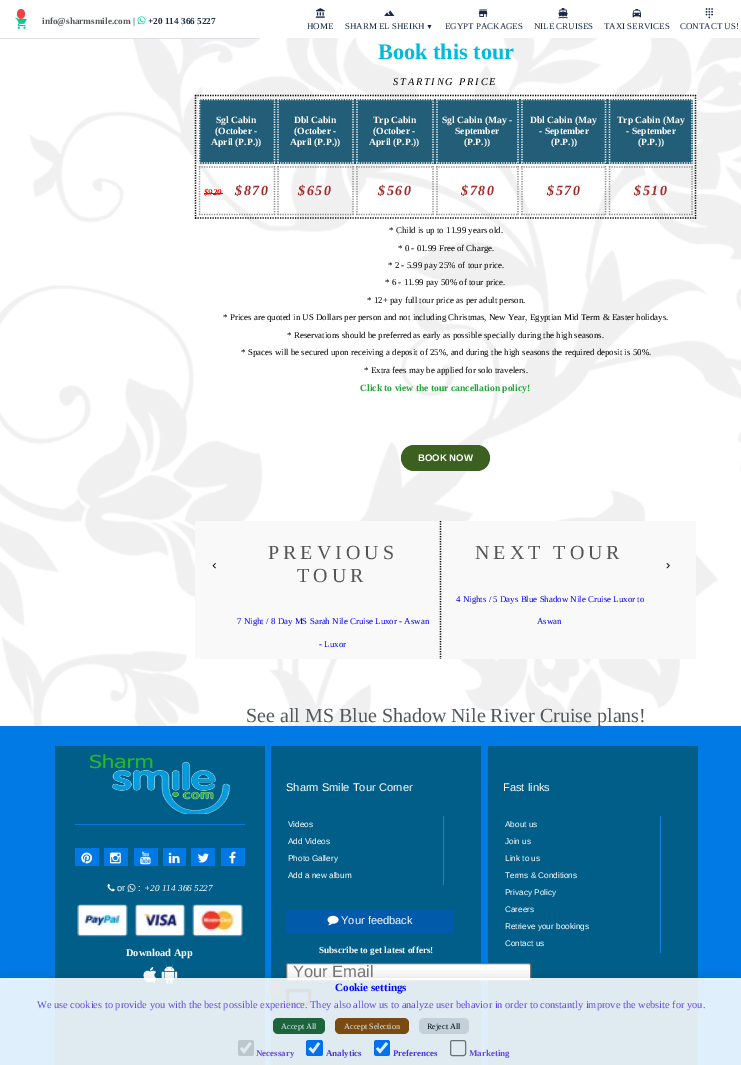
%!PS
<< /PageSize [741 1065] /PageUsesTransparency true >> setpagedevice
/rgb { dup -16 bitshift 255 div exch dup -8 bitshift 255 and 255 div exch 255 and 255 div setrgbcolor } def
/font { [ exch dup neg 0 0 3 -1 roll 0 0 ] selectfont } def
/text { moveto show } def
/alpha { dup .setfillconstantalpha .setstrokeconstantalpha } def
/roundrect { 5 dict begin { /r /h /w /y /x } { exch def } forall
  x r add y moveto x w add y 2 copy h add r arct x w add y h add x 1 index r arct
  x y h add x y r arct x y 2 copy exch w add exch r arct closepath end } def
/shadow { 12 dict begin { /a /b /q /h /w /y /x } { exch def } forall gsave /was 0 def
  9 -2 -9 { dup b mul 4 div /e exch def 1 sub .425 mul 2.718 exch exp 1 add a .99 .min exch div /now exch def
    1 1 now sub 1 was sub div sub alpha /was now def
    w h .min e 2 mul add 0 gt { x e sub y e sub w e 2 mul add h e 2 mul add
      q e add b .6 mul add w h .min 2 div e add .min 0 .max roundrect fill } if } for grestore end } def
/picture { 5 dict begin { /h /w /y /x /name } { exch def } forall
  gsave x y translate w h scale
  w h 8 [w 0 0 h 0 0] name (r) file false 3 colorimage grestore end } def
0 .pushpdf14devicefilter
0 1065 translate 1 -1 scale
4 setmiterlimit
/s1 { /LiberationSerif-Bold 9.25 font 16#51575B rgb } def
/s2 { /LiberationSerif-Bold 9.25 font 16#1A2B49 rgb } def
/s3 { /LiberationSerif-Regular 8.9 font 16#1A2B49 rgb } def
/s4 { /LiberationSerif-Regular 7 font 16#1A2B49 rgb } def
/s5 { /LiberationSerif-Bold 11.1 font 16#000BF1 rgb } def
/s6 { /LiberationSerif-Regular 10.38 font 16#6547E8 rgb } def
/s7 { /LiberationSerif-Regular 8.2 font 16#E1ECF1 rgb } def
/s8 { /LiberationSerif-Regular 8.2 font 16#000B10 rgb } def
/s9 { /LiberationSerif-Bold 8.9 font 16#6547E8 rgb } def
/s10 { /LiberationSerif-Bold 8.9 font 16#4A36DC rgb } def
/s11 { /LiberationSerif-Bold 22.25 font 16#00BBDD rgb } def
/s12 { /LiberationSerif-Bold 9.6 font 16#FFFFFF rgb } def
/s13 { /LiberationSerif-BoldItalic 8.9 font 16#FF0000 rgb } def
/s14 { /LiberationSerif-Regular 8.9 font 16#000000 rgb } def
/s15 { /LiberationSerif-Bold 9.6 font 16#1FA637 rgb } def
/s16 { /LiberationSans-Bold 9.6 font 16#FFFFFF rgb } def
/s17 { /LiberationSerif-Regular 8.9 font 16#0000FF rgb } def
/s18 { /LiberationSerif-Regular 20 font 16#51575B rgb } def
/s19 { /LiberationSans-Regular 9.25 font 16#FFFFFF rgb } def
/s20 { /LiberationSerif-Italic 9.25 font 16#FFFFFF rgb } def
/s21 { /LiberationSerif-Bold 10.38 font 16#FFFFFF rgb } def
/s22 { /LiberationSans-Regular 11.1 font 16#FFFFFF rgb } def
/s23 { /LiberationSans-Regular 8.2 font 16#FFFFFF rgb } def
/s24 { /LiberationSerif-Bold 9.25 font 16#FFFFFF rgb } def
/s25 { /LiberationSans-Regular 16.5 font 16#757575 rgb } def
16#FFFFFF rgb
0 0 741 1065 rectfill
(pic1.raw) 0 38 741 688 picture
16#DEE2E6 rgb
0 38 260 1 rectfill
16#F34041 rgb
21 9 moveto 23 9 25 11 25 14 curveto 25 17 23 19 21 19 curveto 19 19 17 17 17 14 curveto 17 11 19 9 21 9 curveto closepath fill
(pic2.raw) 15 17 12 12 picture
s1
(info@sharmsmile.com) 42 24 text
s2
(|) 133 24 text
(pic3.raw) 137 16 9 9 picture
(+20 114 366 5227) 148 24 text
(pic4.raw) 315 8 10 10 picture
s3
(HOME) 307 29 text
(pic5.raw) 384 10 11 6 picture
(SHARM EL SHEIKH) 345 29 text
s4
(▼) 426 29 text
(pic6.raw) 478 9 10 8 picture
s3
(EGYPT PACKAGES) 445 29 text
(pic7.raw) 558 8 10 11 picture
(NILE CRUISES) 534 29 text
(pic8.raw) 632 9 9 9 picture
(TAXI SERVICES) 604 29 text
(pic9.raw) 705 8 8 11 picture
(CONTACT US!) 680 29 text
16#017AE6 rgb
0 726 741 339 rectfill
16#015E89 rgb
55 746 210 319 rectfill
(pic22.raw) 143 967 14 16 picture
(pic23.raw) 161 965 17 19 picture
271 746 210 319 rectfill
488 746 210 319 rectfill
16#FFFFFF rgb
286.5 963.5 244 17 2 roundrect gsave fill grestore
16#767676 rgb
stroke
(pic25.raw) 268 984 15 11 picture
16#015AAA rgb
287.5 990.5 moveto 309.5 990.5 lineto 309.5 1003.5 lineto 287.5 1003.5 lineto closepath gsave fill grestore
16#000000 rgb
3 setlinewidth
stroke
gsave
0 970 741 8 rectclip
0 975 741 88 0 6 0.09 shadow
grestore
0.88 alpha
16#FFFFFF rgb
0 978 741 87 rectfill
1 alpha
s5
(Cookie settings) 335 991 text
s6
(We use cookies to provide you with the best possible experience. They also allow us to analyze user behavior in order to constantly improve the website for you.) 37 1008 text
16#1C643C rgb
273 1018 52 16 5 roundrect fill
s7
(Accept All) 281 1029 text
16#7A4A10 rgb
335 1018 74 16 5 roundrect fill
s7
(Accept Selection) 344 1029 text
16#C4D1DA rgb
419 1018 50 16 5 roundrect fill
s8
(Reject All) 427 1029 text
16#BCC7CD rgb
238 1040 16 16 2.5 roundrect fill
16#E1ECF1 rgb
2.6 setlinewidth
241 1048 moveto 244 1051.5 lineto 250.5 1043 lineto stroke
s9
(Necessary) 256 1056 text
16#0072F1 rgb
306 1040 17 16 2.5 roundrect fill
16#E1ECF1 rgb
309.5 1048 moveto 313 1051.5 lineto 319 1043 lineto stroke
s10
(Analytics) 326 1056 text
16#0072F1 rgb
374 1040 16 16 2.5 roundrect fill
16#E1ECF1 rgb
377 1048 moveto 380 1051.5 lineto 387 1043 lineto stroke
s10
(Preferences) 393 1056 text
16#687378 rgb
1 setlinewidth
450.5 1040.5 15 15 2 roundrect stroke
s9
(Marketing) 469 1056 text
s11
(Book this tour) 378 59 text
/LiberationSerif-Italic 10.38 font
16#000000 rgb
393 85 moveto 1.8 0 (STARTING PRICE) ashow
1.2 setlinewidth
[1.25 1.25] 0 setdash
195 95.5 moveto 696 95.5 lineto stroke
695.5 95 moveto 695.5 219 lineto stroke
195 218 moveto 696 218 lineto stroke
195.5 95 moveto 195.5 219 lineto stroke
16#225E77 rgb
199 99 494 65 rectfill
16#FFFFFF rgb
199 99.5 moveto 275 99.5 lineto stroke
274.5 99 moveto 274.5 164 lineto stroke
199 163 moveto 275 163 lineto stroke
199.5 99 moveto 199.5 164 lineto stroke
s12
(Sgl Cabin) 216 123 text
(\(October -) 215 134 text
(April \(P.P.\)\)) 211 145 text
277.5 99.5 moveto 354 99.5 lineto stroke
353 99 moveto 353 164 lineto stroke
277.5 163 moveto 354 163 lineto stroke
278 99 moveto 278 164 lineto stroke
(Dbl Cabin) 294 123 text
(\(October -) 294 134 text
(April \(P.P.\)\)) 290 145 text
356 99.5 moveto 434 99.5 lineto stroke
433 99 moveto 433 164 lineto stroke
356 163 moveto 434 163 lineto stroke
357 99 moveto 357 164 lineto stroke
(Trp Cabin) 373 123 text
(\(October -) 373 134 text
(April \(P.P.\)\)) 369 145 text
436 99.5 moveto 519 99.5 lineto stroke
518 99 moveto 518 164 lineto stroke
436 163 moveto 519 163 lineto stroke
437 99 moveto 437 164 lineto stroke
(Sgl Cabin \(May -) 442 123 text
(September) 455 134 text
(\(P.P.\)\)) 464 145 text
521 99.5 moveto 606 99.5 lineto stroke
605.5 99 moveto 605.5 164 lineto stroke
521 163 moveto 606 163 lineto stroke
522 99 moveto 522 164 lineto stroke
(Dbl Cabin \(May) 530 123 text
(- September) 539 134 text
(\(P.P.\)\)) 551 145 text
609 99.5 moveto 692.5 99.5 lineto stroke
692 99 moveto 692 164 lineto stroke
609 163 moveto 692.5 163 lineto stroke
609.5 99 moveto 609.5 164 lineto stroke
(Trp Cabin \(May) 617 123 text
(- September) 626 134 text
(\(P.P.\)\)) 638 145 text
16#8D8D8D rgb
199 167 moveto 275 167 lineto stroke
274.5 166 moveto 274.5 215 lineto stroke
199 214.5 moveto 275 214.5 lineto stroke
199.5 166 moveto 199.5 215 lineto stroke
s13
($920) 204 195 text
204 193 19 1 rectfill
/LiberationSerif-BoldItalic 14 font
16#A52A2A rgb
235 195 moveto 1.5 0 ($870) ashow
16#8D8D8D rgb
277.5 167 moveto 354 167 lineto stroke
353 166 moveto 353 215 lineto stroke
277.5 214.5 moveto 354 214.5 lineto stroke
278 166 moveto 278 215 lineto stroke
16#A52A2A rgb
298 195 moveto 1.5 0 ($650) ashow
16#8D8D8D rgb
356 167 moveto 434 167 lineto stroke
433 166 moveto 433 215 lineto stroke
356 214.5 moveto 434 214.5 lineto stroke
357 166 moveto 357 215 lineto stroke
16#A52A2A rgb
378 195 moveto 1.5 0 ($560) ashow
16#8D8D8D rgb
436 167 moveto 519 167 lineto stroke
518 166 moveto 518 215 lineto stroke
436 214.5 moveto 519 214.5 lineto stroke
437 166 moveto 437 215 lineto stroke
16#A52A2A rgb
461 195 moveto 1.5 0 ($780) ashow
16#8D8D8D rgb
521 167 moveto 606 167 lineto stroke
605.5 166 moveto 605.5 215 lineto stroke
521 214.5 moveto 606 214.5 lineto stroke
522 166 moveto 522 215 lineto stroke
16#A52A2A rgb
547 195 moveto 1.5 0 ($570) ashow
16#8D8D8D rgb
609 167 moveto 692.5 167 lineto stroke
692 166 moveto 692 215 lineto stroke
609 214.5 moveto 692.5 214.5 lineto stroke
609.5 166 moveto 609.5 215 lineto stroke
16#A52A2A rgb
634 195 moveto 1.5 0 ($510) ashow
s14
(* Child is up to 11.99 years old.) 389 233 text
(* 0 - 01.99 Free of Charge.) 398 251 text
(* 2 - 5.99 pay 25% of tour price.) 388 268 text
(* 6 - 11.99 pay 50% of tour price.) 385 285 text
(* 12+ pay full tour price as per adult person.) 367 303 text
(* Prices are quoted in US Dollars per person and not including Christmas, New Year, Egyptian Mid Term & Easter holidays.) 223 320 text
(* Reservations should be preferred as early as possible specially during the high seasons.) 287 338 text
(* Spaces will be secured upon receiving a deposit of 25%, and during the high seasons the required deposit is 50%.) 241 355 text
(* Extra fees may be applied for solo travelers.) 364 373 text
s15
(Click to view the tour cancellation policy!) 360 391 text
16#3C6020 rgb
401 445 89 26 13 roundrect fill
s16
(BOOK NOW) 418 461 text
16#F9F9F9 rgb
195 521 501 138 rectfill
(pic10.raw) 212 563 4 6 picture
16#000000 rgb
440.5 521 moveto 440.5 659 lineto stroke
/LiberationSerif-Regular 20 font
16#555555 rgb
268 559 moveto 4 0 (PREVIOUS) ashow
297 582 moveto 4 0 (TOUR) ashow
s17
(7 Night / 8 Day MS Sarah Nile Cruise Luxor - Aswan) 237 624 text
(- Luxor) 319 647 text
/LiberationSerif-Regular 20 font
16#555555 rgb
475 559 moveto 4 0 (NEXT TOUR) ashow
s17
(4 Nights / 5 Days Blue Shadow Nile Cruise Luxor to) 456 602 text
(Aswan) 537 624 text
(pic11.raw) 666 563 4 6 picture
s18
(See all MS Blue Shadow Nile River Cruise plans!) 246 722 text
(pic12.raw) 90 754 140 60 picture
16#0E78D7 rgb
75 824 170 1 rectfill
16#0179E4 rgb
75 848 24 18 rectfill
(pic13.raw) 81 852 11 12 picture
104 848 24 18 rectfill
(pic14.raw) 110 852 11 12 picture
134 848 24 18 rectfill
(pic15.raw) 140 851 11 14 picture
163 848 23 18 rectfill
(pic16.raw) 168 852 12 12 picture
191 848 24 18 rectfill
(pic17.raw) 198 853 11 10 picture
221 848 24 18 rectfill
(pic18.raw) 229 851 7 13 picture
(pic19.raw) 107 884 8 8 picture
s19
(or) 117 891 text
(pic20.raw) 127 883 9 9 picture
(:) 138 891 text
s20
(+20 114 366 5227) 144 891 text
(pic21.raw) 77 904 166 33 picture
s21
(Download App) 126 956 text
s22
(Sharm Smile Tour Corner) 286 791 text
16#1D82DC rgb
443 816 1 69 rectfill
s23
(Videos) 288 827 text
(Add Videos) 288 844 text
(Photo Gallery) 288 861 text
(Add a new album) 288 878 text
16#015AAA rgb
286 910 168 23 rectfill
(pic24.raw) 327 915 12 11 picture
s22
(Your feedback) 341 924 text
s24
(Subscribe to get latest offers!) 319 953 text
s25
(Your Email) 293 977 text
s22
(Fast links) 503 791 text
16#1D82DC rgb
660 816 1 137 rectfill
s23
(About us) 505 827 text
(Join us) 505 844 text
(Link to us) 505 861 text
(Terms & Conditions) 505 878 text
(Privacy Policy) 505 895 text
(Careers) 505 912 text
(Retrieve your bookings) 505 929 text
(Contact us) 505 946 text
.poppdf14devicefilter showpage
